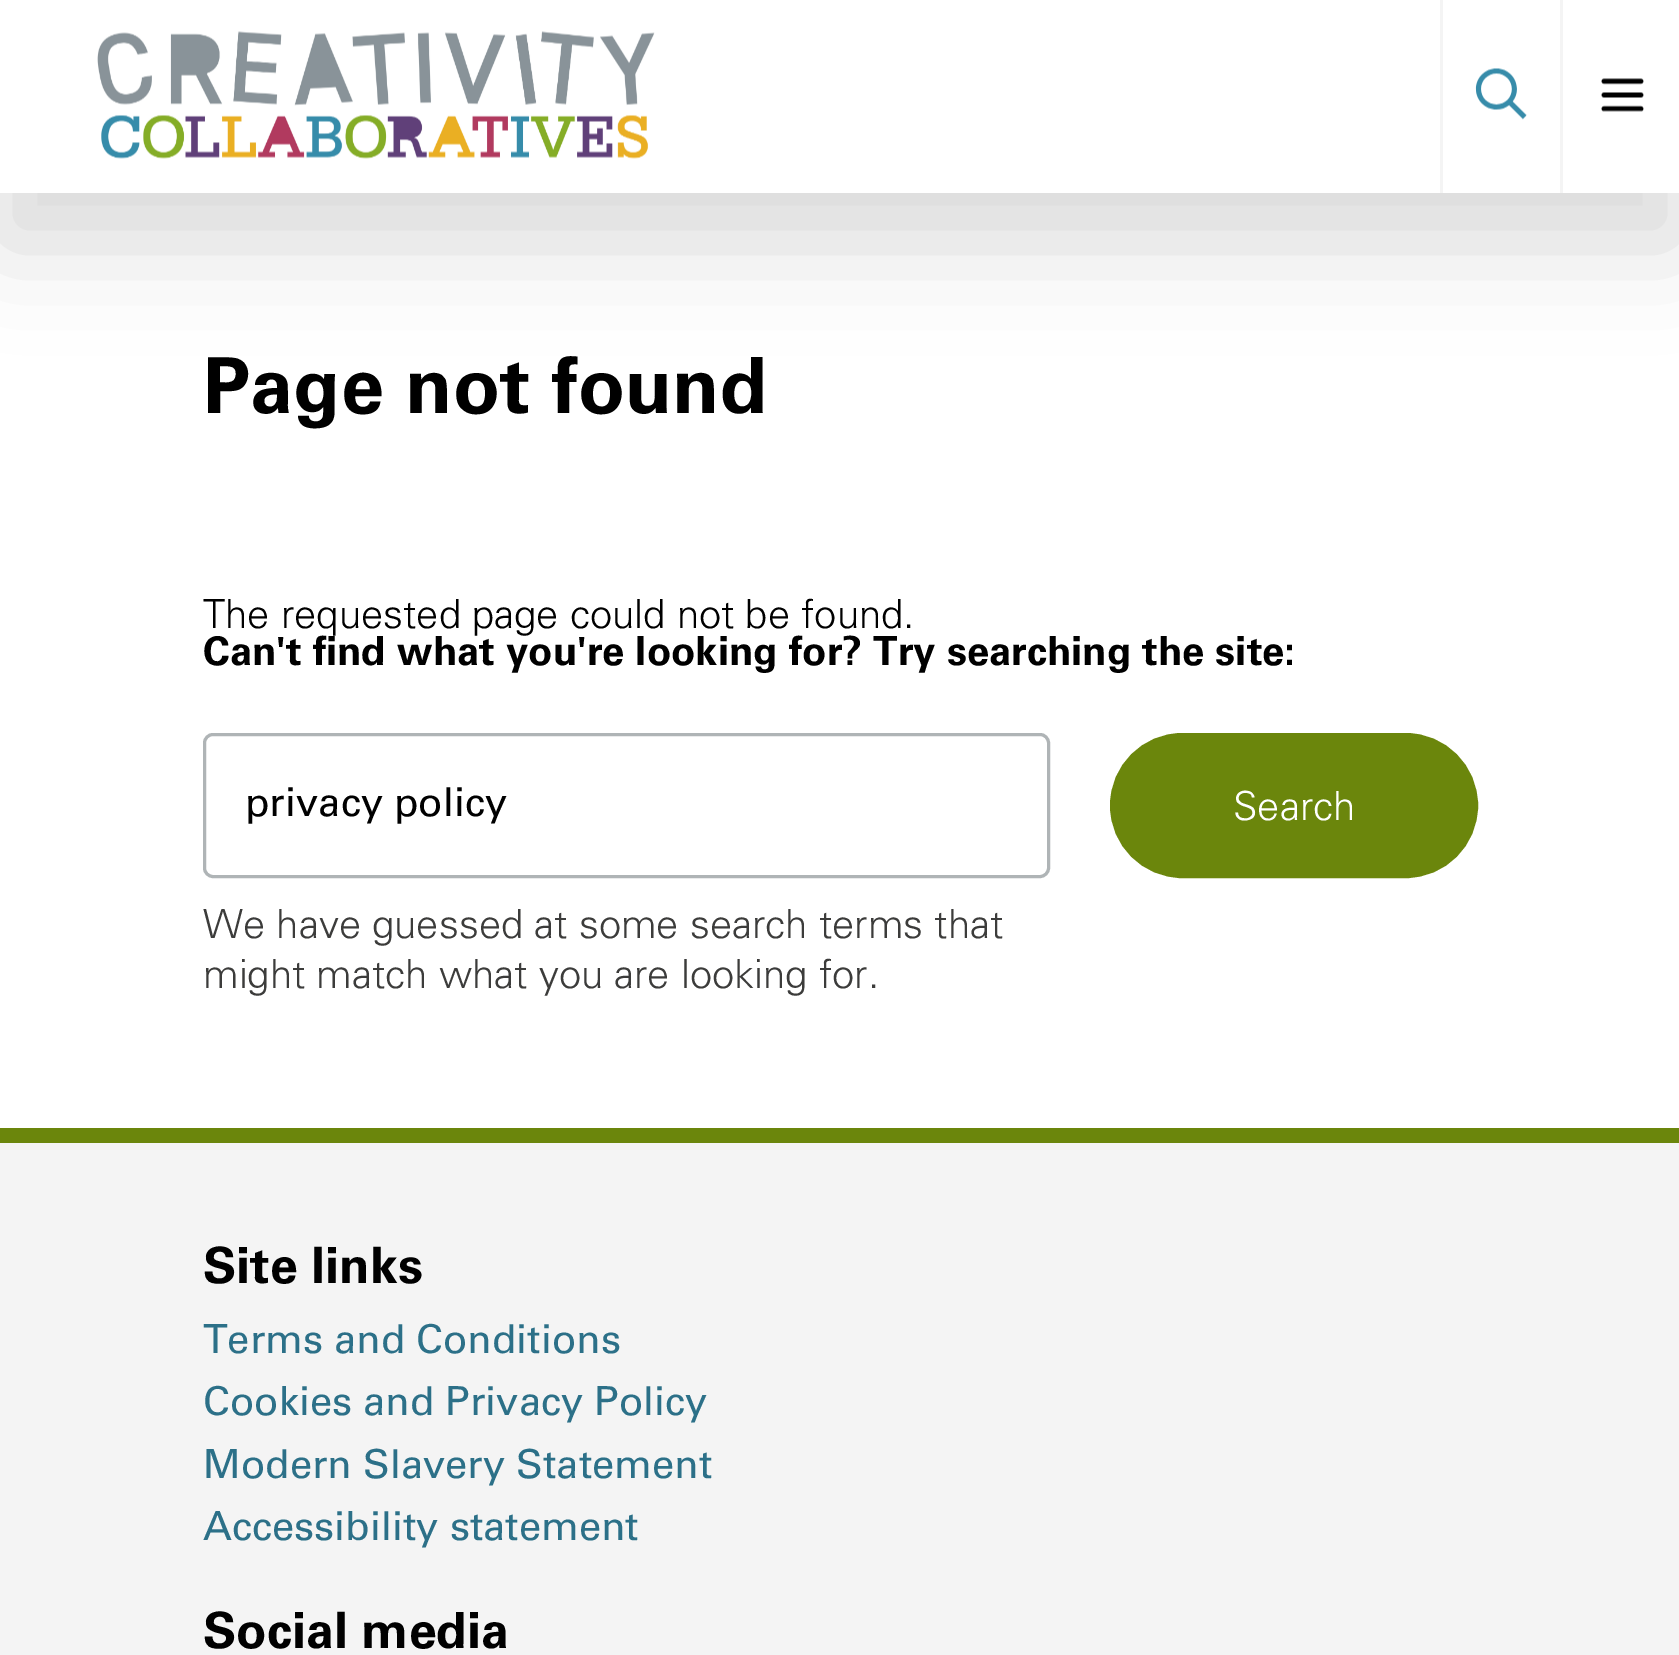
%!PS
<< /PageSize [1679 1655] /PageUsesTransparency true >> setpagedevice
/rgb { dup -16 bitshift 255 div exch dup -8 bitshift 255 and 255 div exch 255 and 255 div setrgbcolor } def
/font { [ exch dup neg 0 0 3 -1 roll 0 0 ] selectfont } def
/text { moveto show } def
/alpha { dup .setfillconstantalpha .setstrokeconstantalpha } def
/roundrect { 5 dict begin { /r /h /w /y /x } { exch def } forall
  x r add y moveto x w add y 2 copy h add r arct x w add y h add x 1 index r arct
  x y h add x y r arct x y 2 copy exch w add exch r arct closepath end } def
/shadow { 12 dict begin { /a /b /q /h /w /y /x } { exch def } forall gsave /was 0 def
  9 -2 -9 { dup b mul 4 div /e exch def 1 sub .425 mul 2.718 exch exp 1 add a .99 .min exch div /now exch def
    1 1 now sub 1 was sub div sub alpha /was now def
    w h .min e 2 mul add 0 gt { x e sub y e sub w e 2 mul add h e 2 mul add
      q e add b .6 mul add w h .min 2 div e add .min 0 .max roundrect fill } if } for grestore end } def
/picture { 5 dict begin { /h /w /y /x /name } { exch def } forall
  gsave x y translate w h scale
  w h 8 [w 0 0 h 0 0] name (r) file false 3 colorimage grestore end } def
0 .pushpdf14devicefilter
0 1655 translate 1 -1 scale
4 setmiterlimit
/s1 { /Univers-Regular 77.5 font 16#000000 rgb } def
/s2 { /Univers-Light 40 font 16#000000 rgb } def
/s3 { /Univers-Regular 40 font 16#000000 rgb } def
/s4 { /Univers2-Regular 40 font 16#000000 rgb } def
/s5 { /Univers-Light 40 font 16#3C3C3B rgb } def
/s6 { /Univers-Light 40 font 16#FFFFFF rgb } def
/s7 { /Univers-Regular 50 font 16#000000 rgb } def
/s8 { /Univers2-Regular 40 font 16#2C7088 rgb } def
16#FFFFFF rgb
0 0 1679 1655 rectfill
16#000000 rgb
0 50 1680 193 0 50 0.15 shadow
16#FFFFFF rgb
0 0 1679 193 rectfill
(pic1.raw) 97 31 558 128 picture
16#F4F4F4 rgb
1440 0 3 193 rectfill
(pic2.raw) 1475 68 52 52 picture
1560 0 3 193 rectfill
(pic3.raw) 1601 78 43 34 picture
s1
(Page not found) 203 413 text
s2
(The requested page could not be found.) 203 628 text
s3
(Can't find what you're looking for? Try searching the site:) 203 665 text
16#AFB4B6 rgb
3 setlinewidth
204.5 734.5 844 142 8.5 roundrect stroke
s4
(privacy policy) 245 816 text
s5
(We have guessed at some search terms that) 203 938 text
(might match what you are looking for.) 203 988 text
16#6B860C rgb
1111.5 734.5 365 142 71 roundrect gsave fill grestore
stroke
s6
(Search) 1233 820 text
16#F4F4F4 rgb
0 1143 1679 512 rectfill
16#6B860C rgb
0 1128 1679 15 rectfill
s7
(Site links) 203 1283 text
s8
(Terms and Conditions) 203 1353 text
(Cookies and Privacy Policy) 203 1415 text
(Modern Slavery Statement) 203 1478 text
(Accessibility statement) 203 1540 text
s7
(Social media) 203 1648 text
.poppdf14devicefilter showpage
